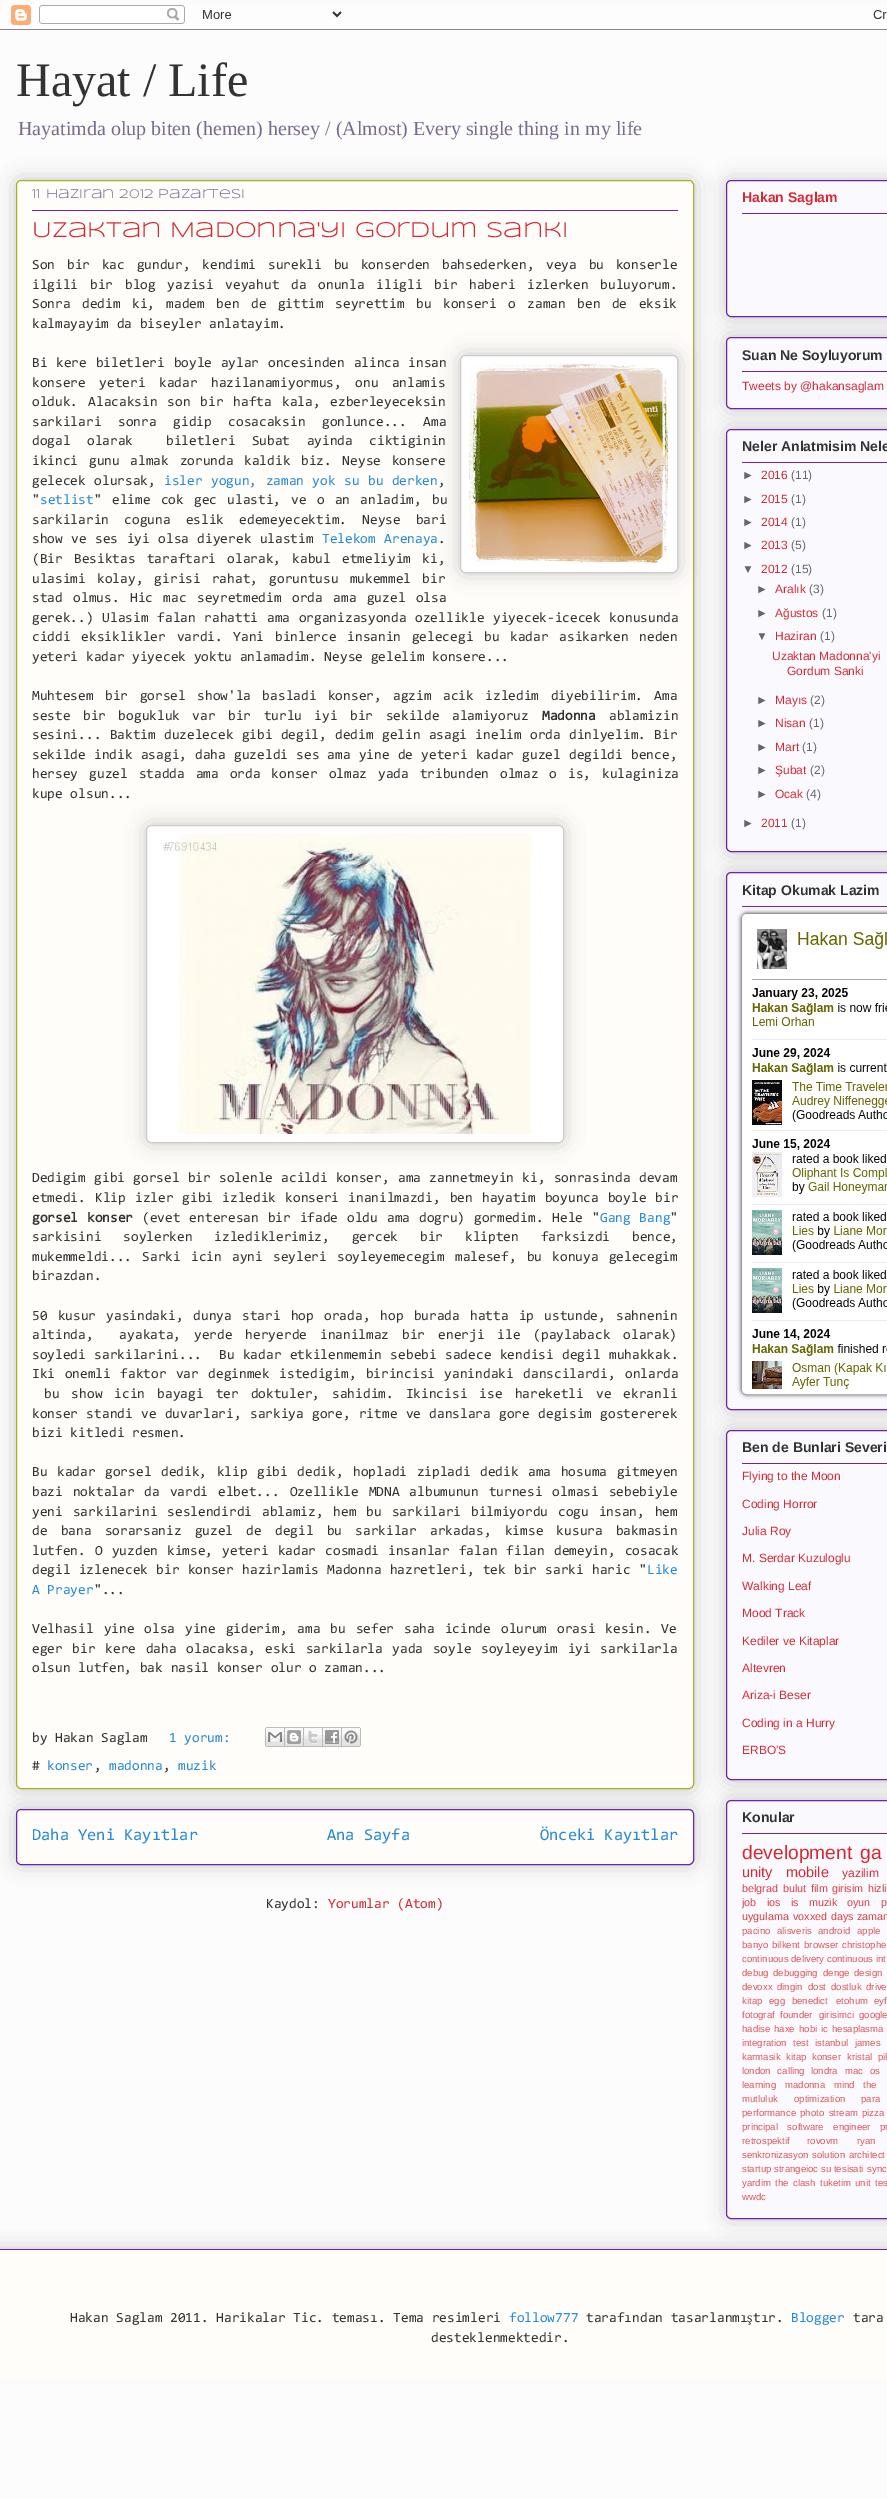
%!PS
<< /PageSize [887 2499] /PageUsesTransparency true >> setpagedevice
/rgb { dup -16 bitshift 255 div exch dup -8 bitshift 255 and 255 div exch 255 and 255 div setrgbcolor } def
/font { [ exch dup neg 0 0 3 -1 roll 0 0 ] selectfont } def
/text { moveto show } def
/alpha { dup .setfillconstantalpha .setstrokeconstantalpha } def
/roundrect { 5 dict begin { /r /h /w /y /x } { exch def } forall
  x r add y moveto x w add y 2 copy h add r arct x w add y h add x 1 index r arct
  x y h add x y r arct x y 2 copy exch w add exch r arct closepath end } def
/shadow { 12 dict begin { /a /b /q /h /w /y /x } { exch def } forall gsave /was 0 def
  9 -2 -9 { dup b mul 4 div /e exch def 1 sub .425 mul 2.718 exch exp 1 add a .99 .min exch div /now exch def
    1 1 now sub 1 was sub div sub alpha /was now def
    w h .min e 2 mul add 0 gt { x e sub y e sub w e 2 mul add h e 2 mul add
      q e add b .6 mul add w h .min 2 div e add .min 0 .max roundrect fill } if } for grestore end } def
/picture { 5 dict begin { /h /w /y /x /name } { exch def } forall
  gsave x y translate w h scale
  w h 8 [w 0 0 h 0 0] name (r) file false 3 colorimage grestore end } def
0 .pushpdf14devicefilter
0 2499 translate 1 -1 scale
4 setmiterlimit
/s1 { /LiberationSerif-Regular 48 font 16#333333 rgb } def
/s2 { /LiberationSerif-Regular 20 font 16#796A90 rgb } def
/s3 { /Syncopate-Regular 13 font 16#796A90 rgb } def
/s4 { /Syncopate-Regular 22 font 16#D52A33 rgb } def
/s5 { /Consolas-Regular 14 font 16#333333 rgb } def
/s6 { /Consolas-Regular 14 font 16#298BD5 rgb } def
/s7 { /Consolas-Bold 14 font 16#333333 rgb } def
/s8 { /Consolas-Regular 16.75 font 16#298BD5 rgb } def
/s9 { /Consolas-Regular 14 font 16#D52A33 rgb } def
/s10 { /LiberationSans-Bold 14 font 16#D52A33 rgb } def
/s11 { /LiberationSans-Bold 14 font 16#333333 rgb } def
/s12 { /LiberationSans-Regular 12 font 16#D52A33 rgb } def
/s13 { /LiberationSans-Regular 12 font 16#666666 rgb } def
/s14 { /LiberationSans-Regular 19.25 font 16#D52A33 rgb } def
/s15 { /LiberationSans-Regular 14.5 font 16#D52A33 rgb } def
/s16 { /LiberationSans-Regular 10.75 font 16#D93F47 rgb } def
/s17 { /LiberationSans-Regular 9.6 font 16#DC545C rgb } def
/s18 { /LiberationSerif-Regular 14 font 16#333333 rgb } def
16#FCFCFC rgb
0 0 887 2499 rectfill
(pic1.raw) 0 5 887 25 picture
s1
(Hayat / Life) 16 96 text
s2
(Hayatimda olup biten \(hemen\) hersey / \(Almost\) Every single thing in my life) 18 135 text
16#000000 rgb
16 1809 678 56 5 10 0.2 shadow
16#FEFDFA rgb
16.5 1809.5 677 55 4.5 roundrect gsave fill grestore
16#6E22B1 rgb
stroke
16#000000 rgb
16 180 678 1609 5 10 0.2 shadow
16#FEFDFA rgb
16.5 180.5 677 1608 4.5 roundrect gsave fill grestore
16#AAB123 rgb
stroke
s3
(11 Haziran 2012 Pazartesi) 32 198 text
16#6E22B1 rgb
32 210 646 1 rectfill
s4
(Uzaktan Madonna'yi Gordum Sanki) 32 237 text
/Consolas-Regular 14 font
16#333333 rgb
32 269 moveto 4.1 0 32 (Son bir kac gundur, kendimi surekli bu konserden bahsederken, veya bu konserle) widthshow
32 289 moveto 4.1 0 32 (ilgili bir blog yazisi veyahut da onunla iligli bir haberi izlerken buluyorum.) widthshow
32 308 moveto 3.75 0 32 (Sonra dedim ki, madem ben de gittim seyrettim bu konseri o zaman ben de eksik) widthshow
(kalmayayim da biseyler anlatayim.) 32 328 text
16#000000 rgb
460 355 218 218 5 10 0.2 shadow
16#FFFFFF rgb
460.5 355.5 217 217 4.5 roundrect gsave fill grestore
16#CCCCCC rgb
stroke
(pic2.raw) 469 364 200 200 picture
16#333333 rgb
32 367 moveto 1 0 32 (Bi kere biletleri boyle aylar oncesinden alinca insan) widthshow
32 387 moveto 5.75 0 32 (konsere yeteri kadar hazilanamiyormus, onu anlamis) widthshow
32 406 moveto 2.25 0 32 (olduk. Alacaksin son bir hafta kala, ezberleyeceksin) widthshow
32 426 moveto 9 0 32 (sarkilari sonra gidip cosacaksin gonlunce... Ama) widthshow
32 445 moveto 8.75 0 32 (dogal olarak  biletleri Subat ayinda ciktiginin) widthshow
32 465 moveto 3 0 32 (ikinci gunu almak zorunda kaldik biz. Neyse konsere) widthshow
32 485 moveto 0.75 0 32 (gelecek olursak,) widthshow
16#298BD5 rgb
164 485 moveto 0.75 0 32 (isler yogun, zaman yok su bu derken) widthshow
s5
(,) 438 485 text
(") 32 504 text
s6
(setlist) 40 504 text
16#333333 rgb
94 504 moveto 2.5 0 32 (" elime cok gec ulasti, ve o an anladim, bu) widthshow
32 524 moveto 7.5 0 32 (sarkilarin coguna eslik edemeyecektim. Neyse bari) widthshow
32 543 moveto 0.75 0 32 (show ve ses iyi olsa diyerek ulastim) widthshow
16#298BD5 rgb
322 543 moveto 0.75 0 32 (Telekom Arenaya) widthshow
s5
(.) 438 543 text
32 563 moveto 3.5 0 32 (\(Bir Besiktas taraftari olarak, kabul etmeliyim ki,) widthshow
32 583 moveto 3.5 0 32 (ulasimi kolay, girisi rahat, goruntusu mukemmel bir) widthshow
32 602 moveto 2.75 0 32 (stad olmus. Hic mac seyretmedim orda ama guzel olsa) widthshow
32 622 moveto 1 0 32 (gerek..\) Ulasim falan rahatti ama organizasyonda ozellikle yiyecek-icecek konusunda) widthshow
32 641 moveto 3 0 32 (ciddi eksiklikler vardi. Yani binlerce insanin gelecegi bu kadar asikarken neden) widthshow
(yeteri kadar yiyecek yoktu anlamadim. Neyse gelelim konsere...) 32 661 text
32 700 moveto 3.75 0 32 (Muhtesem bir gorsel show'la basladi konser, agzim acik izledim diyebilirim. Ama) widthshow
32 720 moveto 4.75 0 32 (seste bir bogukluk var bir turlu iyi bir sekilde alamiyoruz) widthshow
s7
(Madonna) 542 720 text
s5
(ablamizin) 609 720 text
32 739 moveto 0.6 0 32 (sesini... Baktim duzelecek gibi degil, dedim gelin asagi inelim orda dinlyelim. Bir) widthshow
32 759 moveto 0.5 0 32 (sekilde indik asagi, daha guzeldi ses ama yine de yeteri kadar guzel degildi bence,) widthshow
32 778 moveto 3.25 0 32 (hersey guzel stadda ama orda konser olmaz yada tribunden olmaz o is, kulaginiza) widthshow
(kupe olsun...) 32 798 text
16#000000 rgb
146 825 418 318 5 10 0.2 shadow
16#FFFFFF rgb
146.5 825.5 417 317 4.5 roundrect gsave fill grestore
16#CCCCCC rgb
stroke
(pic3.raw) 163 834 378 300 picture
16#333333 rgb
32 1182 moveto 0.6 0 32 (Dedigim gibi gorsel bir solenle acildi konser, ama zannetmeyin ki, sonrasinda devam) widthshow
32 1202 moveto 1.4 0 32 (etmedi. Klip izler gibi izledik konseri inanilmazdi, ben hayatim boyunca boyle bir) widthshow
/Consolas-Bold 14 font
32 1222 moveto 1 0 32 (gorsel konser) widthshow
/Consolas-Regular 14 font
142 1222 moveto 1.25 0 32 (\(evet enteresan bir ifade oldu ama dogru\) gormedim. Hele ") widthshow
16#298BD5 rgb
600 1222 moveto 1 0 32 (Gang Bang) widthshow
s5
(") 670 1222 text
32 1241 moveto 14.25 0 32 (sarkisini soylerken izlediklerimiz, gercek bir klipten farksizdi bence,) widthshow
32 1261 moveto 2.5 0 32 (mukemmeldi... Sarki icin ayni seyleri soyleyemecegim malesef, bu konuya gelecegim) widthshow
(birazdan.) 32 1280 text
32 1320 moveto 2.5 0 32 (50 kusur yasindaki, dunya stari hop orada, hop burada hatta ip ustunde, sahnenin) widthshow
32 1339 moveto 5.25 0 32 (altinda,  ayakata, yerde heryerde inanilmaz bir enerji ile \(paylaback olarak\)) widthshow
32 1359 moveto 0.75 0 32 (soyledi sarkilarini...  Bu kadar etkilenmemin sebebi sadece kendisi degil muhakkak.) widthshow
32 1378 moveto 1.75 0 32 (Iki onemli faktor var deginmek istedigim, birincisi yanindaki danscilardi, onlarda) widthshow
44 1398 moveto 4.4 0 32 (bu show icin bayagi ter doktuler, sahidim. Ikincisi ise hareketli ve ekranli) widthshow
32 1418 moveto 0.6 0 32 (konser standi ve duvarlari, sarkiya gore, ritme ve danslara gore degisim gostererek) widthshow
(bizi kitledi resmen.) 32 1437 text
32 1476 moveto 1.9 0 32 (Bu kadar gorsel dedik, klip gibi dedik, hopladi zipladi dedik ama hosuma gitmeyen) widthshow
32 1496 moveto 2.25 0 32 (bazi noktalar da vardi elbet... Ozellikle MDNA albumunun turnesi olmasi sebebiyle) widthshow
32 1516 moveto 2.25 0 32 (yeni sarkilarini seslendirdi ablamiz, hem bu sarkilari bilmiyordu cogu insan, hem) widthshow
32 1535 moveto 5.5 0 32 (de bana sorarsaniz guzel de degil bu sarkilar arkadas, kimse kusura bakmasin) widthshow
32 1555 moveto 1.4 0 32 (lutfen. O yuzden kimse, yeteri kadar cosmadi insanlar falan filan demeyin, cosacak) widthshow
32 1574 moveto 0.6 0 32 (degil izlenecek bir konser hazirlamis Madonna hazretleri, tek bir sarki haric ") widthshow
s6
(Like) 647 1574 text
(A Prayer) 32 1594 text
s5
("...) 94 1594 text
32 1633 moveto 2.25 0 32 (Velhasil yine olsa yine giderim, ama bu sefer saha icinde olurum orasi kesin. Ve) widthshow
32 1653 moveto 2 0 32 (eger bir kere daha olacaksa, eski sarkilarla yada soyle soyleyeyim iyi sarkilarla) widthshow
(olsun lutfen, bak nasil konser olur o zaman...) 32 1672 text
(by Hakan Saglam) 32 1742 text
s6
(1 yorum:) 169 1742 text
(pic4.raw) 265 1727 20 20 picture
(pic5.raw) 285 1727 19 20 picture
(pic6.raw) 304 1727 19 20 picture
(pic7.raw) 323 1727 19 20 picture
(pic8.raw) 342 1727 19 20 picture
s5
(#) 32 1770 text
s6
(konser) 47 1770 text
s5
(,) 94 1770 text
s6
(madonna) 109 1770 text
s5
(,) 163 1770 text
s6
(muzik) 178 1770 text
s8
(Daha Yeni Kayıtlar) 32 1840 text
(Ana Sayfa) 327 1840 text
(Önceki Kayıtlar) 540 1840 text
s5
(Kaydol:) 266 1908 text
s9
(Yorumlar \(Atom\)) 328 1908 text
16#000000 rgb
726 180 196 137 5 10 0.2 shadow
16#FAFAFE rgb
726.5 180.5 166 136 4.5 roundrect gsave fill grestore
16#6E22B1 rgb
stroke
s10
(Hakan Saglam) 742 202 text
16#6E22B1 rgb
742 213 145 1 rectfill
16#000000 rgb
726 337 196 72 5 10 0.2 shadow
16#FAFAFE rgb
726.5 337.5 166 71 4.5 roundrect gsave fill grestore
16#6E22B1 rgb
stroke
s11
(Suan Ne Soyluyorum) 742 360 text
16#6E22B1 rgb
742 371 145 1 rectfill
s12
(Tweets by @hakansaglam) 742 390 text
16#000000 rgb
726 429 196 423 5 10 0.2 shadow
16#FAFAFE rgb
726.5 429.5 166 422 4.5 roundrect gsave fill grestore
16#6E22B1 rgb
stroke
s11
(Neler Anlatmisim Nele) 742 451 text
16#6E22B1 rgb
742 462 145 1 rectfill
s13
(►) 742 479 text
s12
(2016) 761 479 text
s13
(\(11\)) 791 479 text
(►) 742 503 text
s12
(2015) 761 503 text
s13
(\(1\)) 791 503 text
(►) 742 526 text
s12
(2014) 761 526 text
s13
(\(1\)) 791 526 text
(►) 742 549 text
s12
(2013) 761 549 text
s13
(\(5\)) 791 549 text
(▼) 742 573 text
s12
(2012) 761 573 text
s13
(\(15\)) 791 573 text
(►) 756 593 text
s12
(Aralık) 775 593 text
s13
(\(3\)) 809 593 text
(►) 756 617 text
s12
(Ağustos) 775 617 text
s13
(\(1\)) 822 617 text
(▼) 756 640 text
s12
(Haziran) 775 640 text
s13
(\(1\)) 820 640 text
s12
(Uzaktan Madonna'yi) 772 660 text
(Gordum Sanki) 787 675 text
s13
(►) 756 704 text
s12
(Mayıs) 775 704 text
s13
(\(2\)) 810 704 text
(►) 756 727 text
s12
(Nisan) 775 727 text
s13
(\(1\)) 809 727 text
(►) 756 751 text
s12
(Mart) 775 751 text
s13
(\(1\)) 802 751 text
(►) 756 774 text
s12
(Şubat) 775 774 text
s13
(\(2\)) 810 774 text
(►) 756 798 text
s12
(Ocak) 775 798 text
s13
(\(4\)) 806 798 text
(►) 742 827 text
s12
(2011) 761 827 text
s13
(\(1\)) 791 827 text
16#000000 rgb
726 872 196 538 5 10 0.2 shadow
16#FAFAFE rgb
726.5 872.5 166 537 4.5 roundrect gsave fill grestore
16#6E22B1 rgb
stroke
s11
(Kitap Okumak Lazim) 742 895 text
16#6E22B1 rgb
742 906 145 1 rectfill
16#595959 rgb
741 913 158 482 6 2 1 shadow
16#FFFFFF rgb
744.5 916.5 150 475 2.5 roundrect gsave fill grestore
5 setlinewidth
stroke
(pic9.raw) 752 929 135 460 picture
16#000000 rgb
726 1430 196 350 5 10 0.2 shadow
16#FAFAFE rgb
726.5 1430.5 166 349 4.5 roundrect gsave fill grestore
16#6E22B1 rgb
1 setlinewidth
stroke
s11
(Ben de Bunlari Severi) 742 1452 text
16#6E22B1 rgb
742 1463 145 1 rectfill
s12
(Flying to the Moon) 742 1480 text
(Coding Horror) 742 1508 text
(Julia Roy) 742 1535 text
(M. Serdar Kuzuloglu) 742 1562 text
(Walking Leaf) 742 1590 text
(Mood Track) 742 1617 text
(Kediler ve Kitaplar) 742 1645 text
(Altevren) 742 1672 text
(Ariza-i Beser) 742 1699 text
(Coding in a Hurry) 742 1727 text
(ERBO'S) 742 1754 text
16#000000 rgb
726 1800 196 419 5 10 0.2 shadow
16#FAFAFE rgb
726.5 1800.5 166 418 4.5 roundrect gsave fill grestore
16#6E22B1 rgb
stroke
s11
(Konular) 742 1822 text
16#6E22B1 rgb
742 1833 145 1 rectfill
s14
(development) 742 1859 text
(ga) 860 1859 text
s15
(unity) 742 1877 text
(mobile) 786 1877 text
s12
(yazilim) 842 1877 text
s16
(belgrad) 742 1892 text
(bulut) 783 1892 text
(film) 811 1892 text
(girisim) 832 1892 text
868 1892 moveto 2 0 32 (hizli) widthshow
(job) 742 1906 text
(ios) 767 1906 text
(is) 791 1906 text
(muzik) 809 1906 text
(oyun) 847 1906 text
(p) 881 1906 text
(uygulama) 742 1920 text
793 1920 moveto 1 0 32 (voxxed days) widthshow
(zaman) 857 1920 text
s17
(pacino) 742 1934 text
(alisveris) 777 1934 text
(android) 818 1934 text
(apple) 857 1934 text
(banyo) 742 1948 text
(bilkent) 772 1948 text
(browser) 804 1948 text
842 1948 moveto 1 0 32 (christophe) widthshow
(continuous delivery continuous int) 742 1962 text
(debug) 742 1976 text
(debugging) 773 1976 text
(denge) 823 1976 text
854 1976 moveto 2 0 32 (design) widthshow
(devoxx) 742 1990 text
(dingin) 777 1990 text
(dost) 808 1990 text
(dostluk) 831 1990 text
(drive) 866 1990 text
(kitap) 742 2004 text
769 2004 moveto 4 0 32 (egg benedict) widthshow
(etohum) 836 2004 text
874 2004 moveto 4 0 32 (eyf) widthshow
(fotograf) 742 2018 text
(founder) 780 2018 text
(girisimci) 819 2018 text
(google) 859 2018 text
(hadise) 742 2032 text
(haxe) 774 2032 text
(hobi) 799 2032 text
821 2032 moveto 1.25 0 32 (ic hesaplasma) widthshow
742 2046 moveto 3.75 0 32 (integration test) widthshow
(istanbul) 815 2046 text
855 2046 moveto 3.75 0 32 (james) widthshow
(karmasik) 742 2060 text
(kitap) 786 2060 text
(konser) 812 2060 text
847 2060 moveto 3 0 32 (kristal pik) widthshow
742 2074 moveto 4 0 32 (london calling) widthshow
(londra) 811 2074 text
845 2074 moveto 4 0 32 (mac os) widthshow
(learning) 742 2088 text
(madonna) 785 2088 text
834 2088 moveto 6 0 32 (mind the) widthshow
(mutluluk) 742 2102 text
(optimization) 794 2102 text
(para) 861 2102 text
(performance) 742 2116 text
800 2116 moveto 2 0 32 (photo stream) widthshow
862 2116 moveto 2 0 32 (pizza) widthshow
742 2130 moveto 7 0 32 (principal software engineer) widthshow
880 2130 moveto 7 0 32 (pr) widthshow
(retrospektif) 742 2144 text
(rovovm) 807 2144 text
857 2144 moveto 15 0 32 (ryan) widthshow
(senkronizasyon) 742 2158 text
812 2158 moveto 1 0 32 (solution architect) widthshow
(startup strangeioc su tesisati) 742 2172 text
(sync) 867 2172 text
(yardim) 742 2186 text
775 2186 moveto 2 0 32 (the clash) widthshow
(tuketim) 820 2186 text
855 2186 moveto 2 0 32 (unit tes) widthshow
(wwdc) 742 2200 text
gsave
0 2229 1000 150 rectclip
16#000000 rgb
-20 2249 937 130 0 10 0.2 shadow
grestore
16#FEFDFA rgb
0 2250 887 129 rectfill
16#6E22B1 rgb
0 2249 887 1 rectfill
s5
(Hakan Saglam 2011. Harikalar Tic. teması. Tema resimleri) 70 2322 text
s6
(follow777) 509 2322 text
s5
(tarafından tasarlanmı) 586 2322 text
s18
(ş) 747 2322 text
s5
(tır.) 753 2322 text
s6
(Blogger) 791 2322 text
s5
(tara) 853 2322 text
(desteklenmektedir.) 431 2342 text
.poppdf14devicefilter showpage
